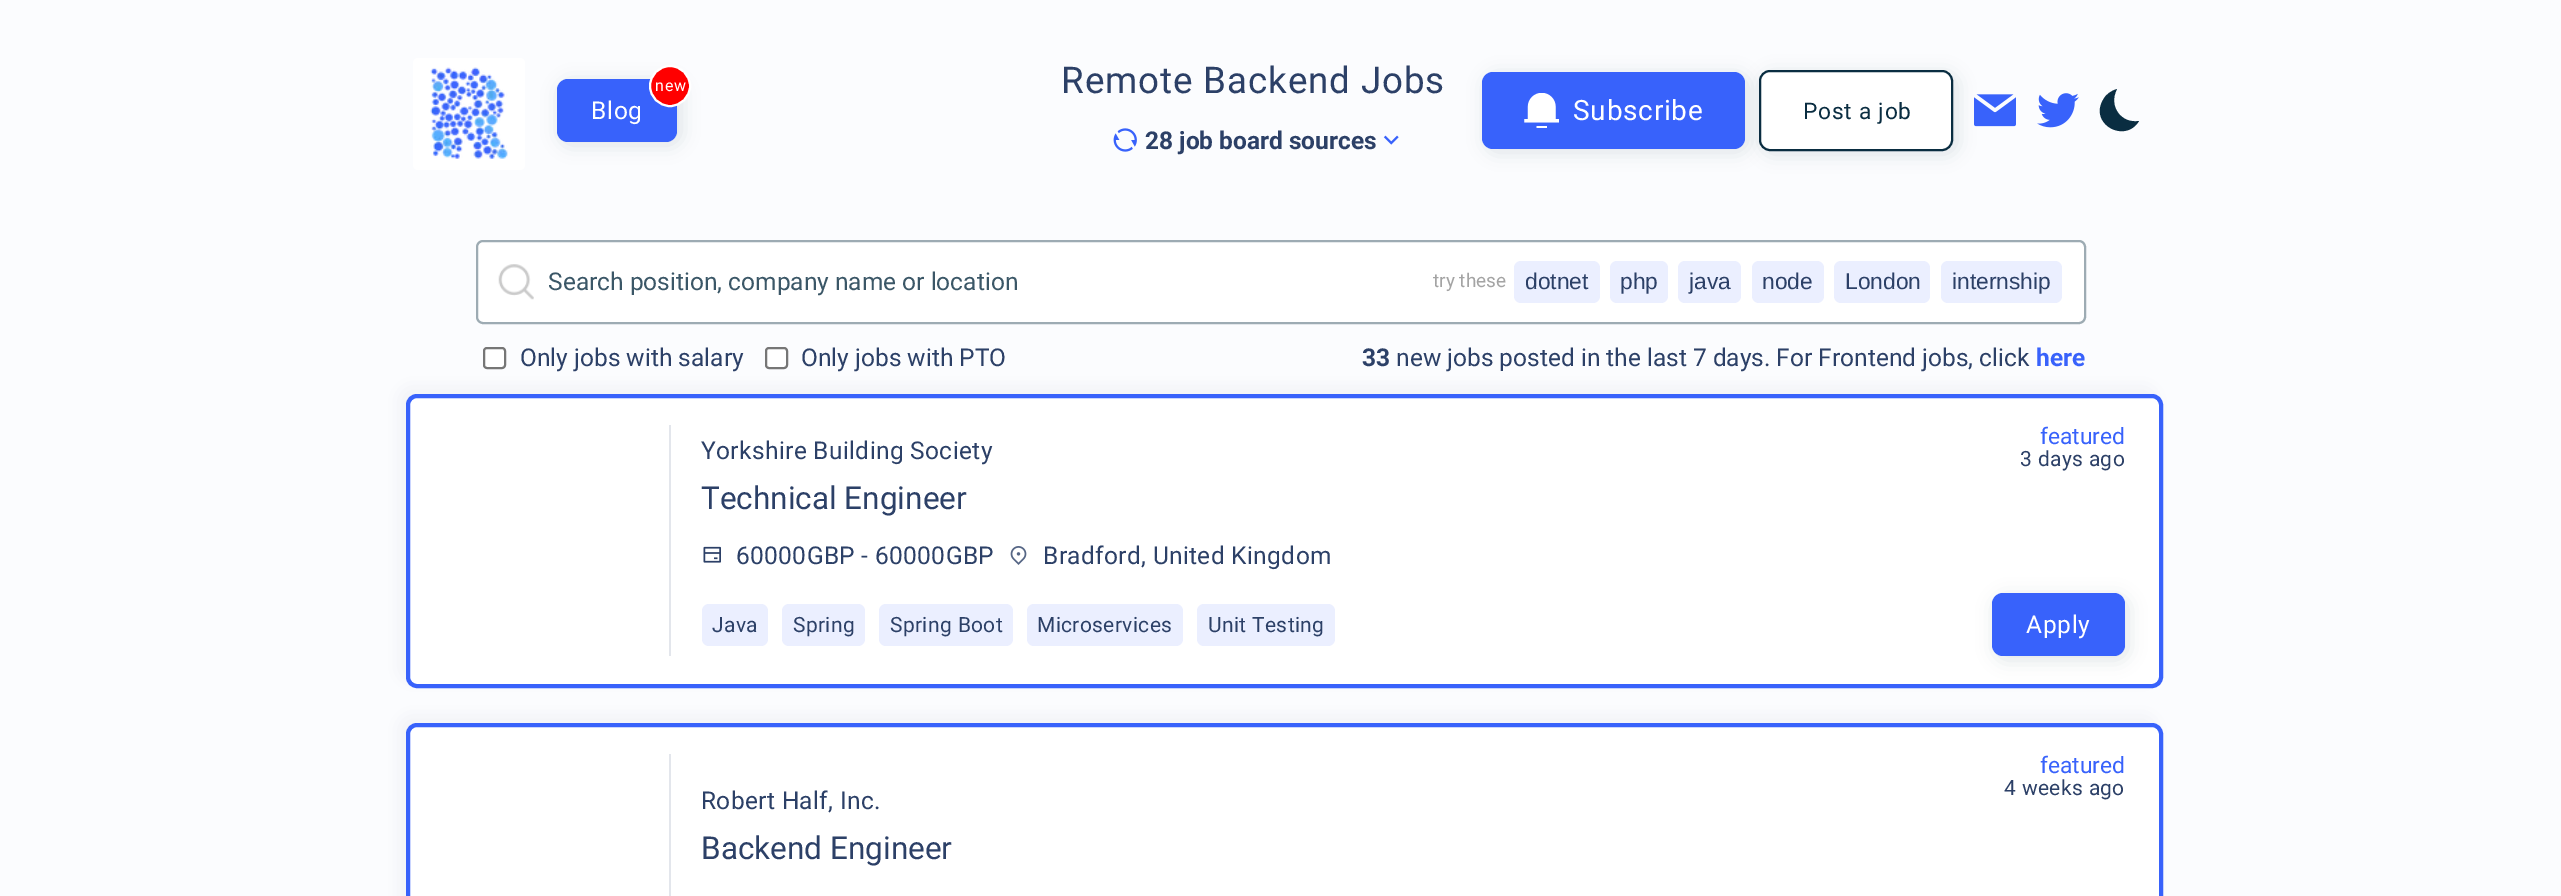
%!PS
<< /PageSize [2561 896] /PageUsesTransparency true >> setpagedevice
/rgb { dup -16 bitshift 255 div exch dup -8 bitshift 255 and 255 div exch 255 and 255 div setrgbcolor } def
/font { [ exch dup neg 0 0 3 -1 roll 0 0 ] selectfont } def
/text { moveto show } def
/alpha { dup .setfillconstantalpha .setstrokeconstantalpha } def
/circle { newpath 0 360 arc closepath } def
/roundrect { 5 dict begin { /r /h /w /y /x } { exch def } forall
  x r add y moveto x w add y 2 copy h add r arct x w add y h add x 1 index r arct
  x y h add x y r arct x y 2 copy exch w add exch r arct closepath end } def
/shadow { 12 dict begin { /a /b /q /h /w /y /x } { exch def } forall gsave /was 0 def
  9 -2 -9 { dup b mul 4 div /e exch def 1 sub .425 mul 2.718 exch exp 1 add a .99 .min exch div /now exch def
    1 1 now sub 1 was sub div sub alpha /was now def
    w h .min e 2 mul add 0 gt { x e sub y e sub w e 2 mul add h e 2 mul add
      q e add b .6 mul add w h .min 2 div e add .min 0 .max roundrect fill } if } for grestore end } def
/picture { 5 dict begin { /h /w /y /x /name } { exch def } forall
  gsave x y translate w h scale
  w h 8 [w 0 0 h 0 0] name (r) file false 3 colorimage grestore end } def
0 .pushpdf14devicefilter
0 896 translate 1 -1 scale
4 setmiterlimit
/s1 { /Roboto-Bold 24.5 font 16#2C4067 rgb } def
/s2 { /Roboto-Regular 24.5 font 16#3B5767 rgb } def
/s3 { /Roboto-Regular 19 font 16#A4A4A4 rgb } def
/s4 { /LiberationSans-Regular 22.75 font 16#2C4067 rgb } def
/s5 { /Roboto-Regular 24.5 font 16#2C4067 rgb } def
/s6 { /Roboto-Bold 24.5 font 16#3862FB rgb } def
/s7 { /Roboto-Regular 22.75 font 16#3862FB rgb } def
/s8 { /Roboto-Regular 31.5 font 16#2C4067 rgb } def
16#FBFCFE rgb
0 0 2561 896 rectfill
16#FFFFFF rgb
413 58 112 112 5 roundrect fill
(pic1.raw) 430 67 78 92 picture
16#0A2D41 rgb
560 82 121 63 11 9 0.12 shadow
16#3862FB rgb
557 79 120 63 11 roundrect fill
16#FF0000 rgb
670 86 20 circle gsave fill grestore
16#FFFFFF rgb
2 setlinewidth
stroke
/Roboto-Regular 16 font
655 91 moveto 0.75 0 (new) ashow
/Roboto-Regular 24.5 font
591 119 moveto 0.75 0 (Blog) ashow
/Roboto-Regular 36.75 font
16#2C4067 rgb
1061 93 moveto 0.9 0 (Remote Backend Jobs) ashow
(pic2.raw) 1113 128 24 24 picture
s1
(28 job board sources) 1145 149 text
(pic3.raw) 1383 135 16 10 picture
16#0A2D41 rgb
1486 75 262 77 11 9 0.12 shadow
16#3862FB rgb
1482 72 263 77 11 roundrect fill
(pic4.raw) 1524 93 35 35 picture
/Roboto-Regular 28 font
16#FFFFFF rgb
1573 120 moveto 0.75 0 (Subscribe) ashow
16#0A2D41 rgb
1762 74 195 80 11 9 0.12 shadow
16#FFFFFF rgb
1760 71 192 79 10 roundrect gsave fill grestore
16#0A2D41 rgb
stroke
/Roboto-Regular 22.75 font
1803 119 moveto 0.75 0 (Post a job) ashow
(pic5.raw) 1974 94 42 33 picture
(pic6.raw) 2037 93 42 35 picture
2139 121 moveto 2121 124 2108 106 2117 89 curveto 2111 91 2106 94 2103 100 curveto 2089 124 2125 144 2139 121 curveto closepath fill
16#FFFFFF rgb
476 240 1610 84 7 roundrect fill
(pic7.raw) 498 264 36 36 picture
16#9DABB3 rgb
477 241 1608 82 6 roundrect stroke
s2
(Search position, company name or location) 548 290 text
s3
(try these) 1433 287 text
16#EBEFFF rgb
1514 261 86 42 7 roundrect fill
s4
(dotnet) 1525 289 text
16#EBEFFF rgb
1610 261 58 42 7 roundrect fill
s4
(php) 1620 289 text
16#EBEFFF rgb
1678 261 63 42 7 roundrect fill
s4
(java) 1689 289 text
16#EBEFFF rgb
1752 261 72 42 7 roundrect fill
s4
(node) 1762 289 text
16#EBEFFF rgb
1834 261 96 42 7 roundrect fill
s4
(London) 1845 289 text
16#EBEFFF rgb
1941 261 121 42 7 roundrect fill
s4
(internship) 1952 289 text
16#FFFFFF rgb
484 348 21 20 3 roundrect gsave fill grestore
16#767676 rgb
stroke
s5
(Only jobs with salary) 520 366 text
16#FFFFFF rgb
766 348 21 20 3 roundrect gsave fill grestore
16#767676 rgb
stroke
s5
(Only jobs with PTO) 801 366 text
s1
(33) 1362 366 text
s5
(new jobs posted in the last 7 days. For Frontend jobs, click) 1396 366 text
s6
(here) 2036 366 text
gsave
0 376 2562 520 rectclip
16#C7CBD7 rgb
399 387 1757 294 11 9 0.2 shadow
grestore
16#FFFFFF rgb
408 396 1753 290 9 roundrect gsave fill grestore
16#3862FB rgb
4 setlinewidth
stroke
16#E3E6EC rgb
669 425 2 231 rectfill
/Roboto-Regular 24.5 font
16#2C4067 rgb
701 459 moveto 0.35 0 (Yorkshire Building Society) ashow
s7
(featured) 2040 444 text
/Roboto-Regular 21 font
16#2C4067 rgb
2020 466 moveto 0.35 0 (3 days ago) ashow
s8
(Technical Engineer) 701 509 text
(pic8.raw) 703 546 18 17 picture
/Roboto-Regular 24.5 font
736 564 moveto 0.35 0 (60000GBP - 60000GBP) ashow
(pic9.raw) 1010 546 17 19 picture
1043 564 moveto 0.35 0 (Bradford, United Kingdom) ashow
16#EBEFFF rgb
702 604 66 42 7 roundrect fill
/Roboto-Regular 21 font
16#2C4067 rgb
712 632 moveto 0.35 0 (Java) ashow
16#EBEFFF rgb
782 604 83 42 7 roundrect fill
16#2C4067 rgb
793 632 moveto 0.35 0 (Spring) ashow
16#EBEFFF rgb
879 604 134 42 7 roundrect fill
16#2C4067 rgb
890 632 moveto 0.35 0 (Spring Boot) ashow
16#EBEFFF rgb
1027 604 156 42 7 roundrect fill
16#2C4067 rgb
1037 632 moveto 0.35 0 (Microservices) ashow
16#EBEFFF rgb
1197 604 138 42 7 roundrect fill
16#2C4067 rgb
1208 632 moveto 0.35 0 (Unit Testing) ashow
16#0A2D41 rgb
1995 597 133 63 11 9 0.12 shadow
16#3862FB rgb
1992 593 133 63 11 roundrect fill
/Roboto-Regular 24.5 font
16#FFFFFF rgb
2026 633 moveto 0.75 0 (Apply) ashow
16#C7CBD7 rgb
399 716 1757 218 11 9 0.2 shadow
16#FFFFFF rgb
417 723 moveto 2152 723 lineto 2158 723 2163 728 2163 734 curveto 2163 896 lineto 406 896 lineto 406 734 lineto 406 728 411 723 417 723 curveto closepath fill
16#3862FB rgb
408 725 1753 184 9 roundrect stroke
16#E3E6EC rgb
669 754 2 142 rectfill
16#2C4067 rgb
701 809 moveto 0.35 0 (Robert Half, Inc.) ashow
s7
(featured) 2040 773 text
/Roboto-Regular 21 font
16#2C4067 rgb
2004 795 moveto 0.35 0 (4 weeks ago) ashow
s8
(Backend Engineer) 701 859 text
.poppdf14devicefilter showpage
